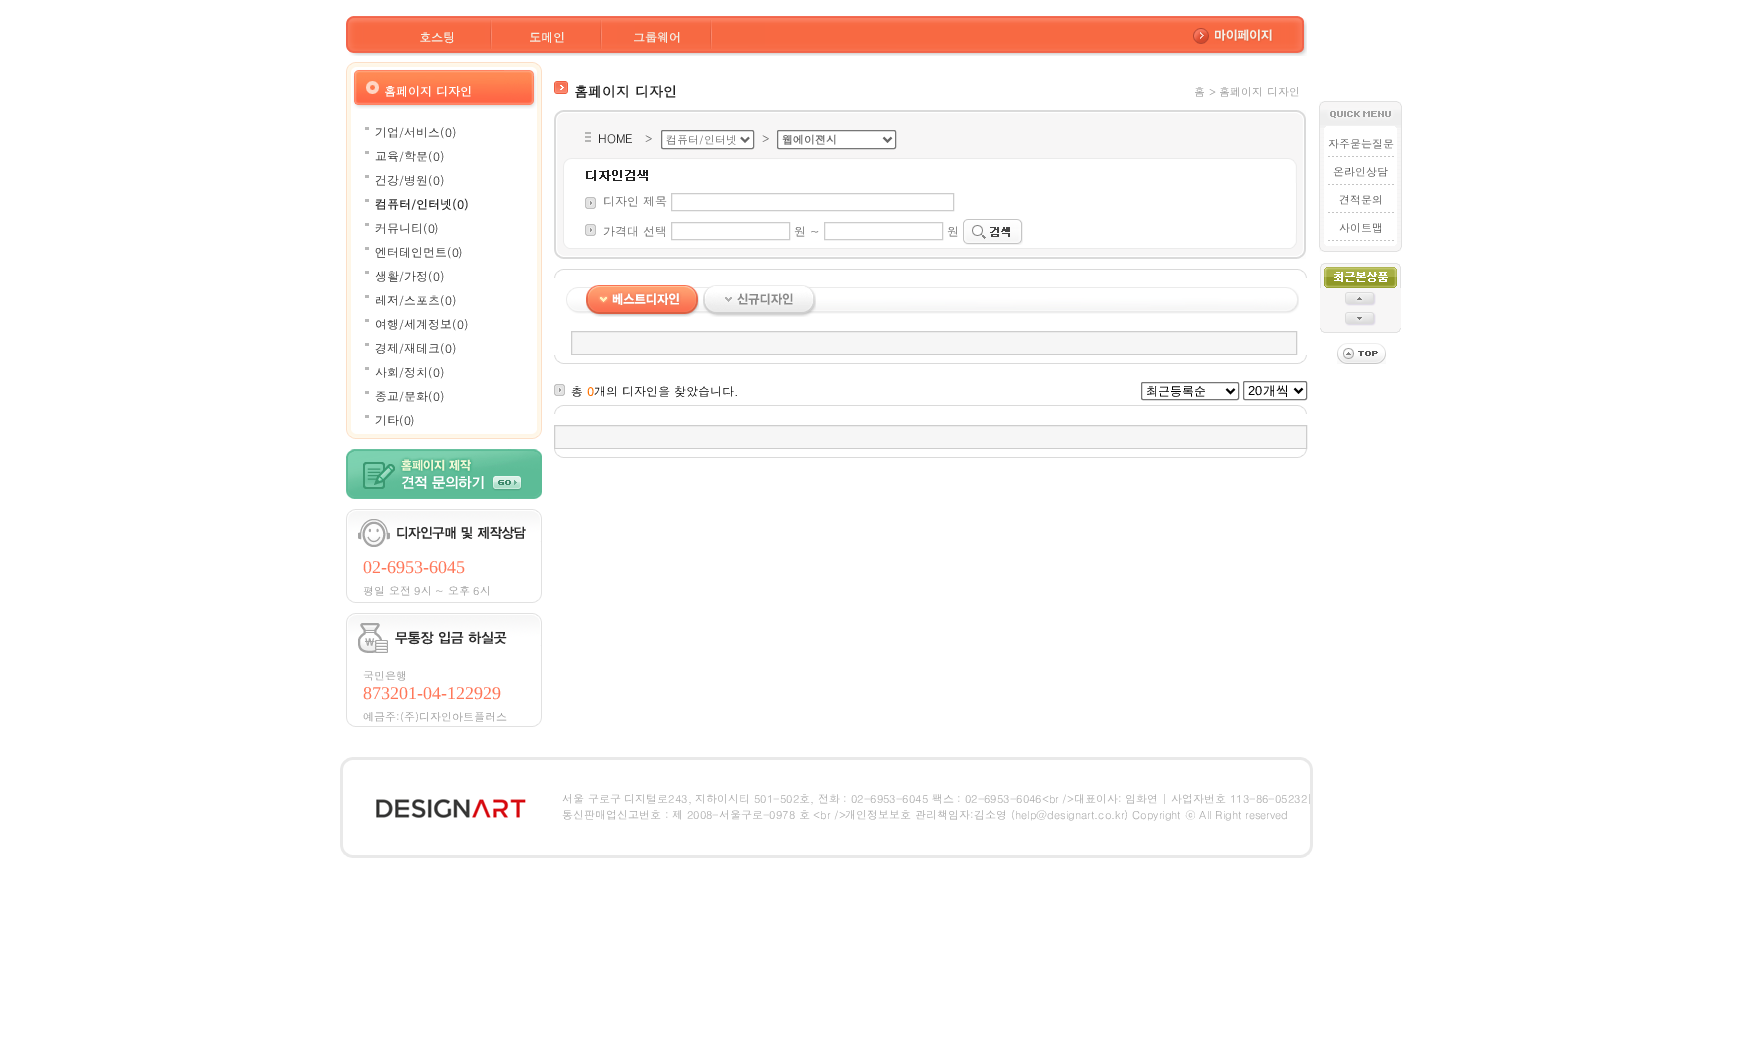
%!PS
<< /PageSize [1747 1060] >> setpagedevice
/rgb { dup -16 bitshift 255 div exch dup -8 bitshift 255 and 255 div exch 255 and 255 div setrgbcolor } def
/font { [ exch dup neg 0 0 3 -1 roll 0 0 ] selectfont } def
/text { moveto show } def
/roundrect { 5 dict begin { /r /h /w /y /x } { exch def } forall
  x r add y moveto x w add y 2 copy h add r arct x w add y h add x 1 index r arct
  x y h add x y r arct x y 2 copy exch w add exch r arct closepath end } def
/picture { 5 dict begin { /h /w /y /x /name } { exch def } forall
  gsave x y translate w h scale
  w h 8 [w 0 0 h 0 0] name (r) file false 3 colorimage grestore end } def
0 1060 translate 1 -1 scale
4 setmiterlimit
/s1 { /Dotum-Bold 12 font 16#F4F0E7 rgb } def
/s2 { /Dotum-Bold 12 font 16#FFFFFF rgb } def
/s3 { /Dotum-Regular 12 font 16#2C2C2C rgb } def
/s4 { /Dotum-Bold 12 font 16#2C2C2C rgb } def
/s5 { /LiberationSerif-Regular 18 font 16#FF7759 rgb } def
/s6 { /Dotum-Regular 11 font 16#999999 rgb } def
/s7 { /Dotum-Bold 14 font 16#222222 rgb } def
/s8 { /Dotum-Regular 12 font 16#222222 rgb } def
/s9 { /Dotum-Regular 12 font 16#666666 rgb } def
/s10 { /Dotum-Regular 11 font 16#666666 rgb } def
/s11 { /Dotum-Bold 11 font 16#666666 rgb } def
/s12 { /Dotum-Regular 12 font 16#000000 rgb } def
/s13 { /Dotum-Bold 12 font 16#FF7200 rgb } def
/s14 { /WenQuanYiZenHei-Medium 12 font 16#000000 rgb } def
/s15 { /LiberationSans-Regular 13 font 16#000000 rgb } def
/s16 { /WenQuanYiZenHei-Medium 13 font 16#000000 rgb } def
/s17 { /Dotum-Regular 11 font 16#555555 rgb } def
/s18 { /Dotum-Regular 11 font 16#A9A9A9 rgb } def
16#FFFFFF rgb
0 0 1747 1060 rectfill
(pic1.raw) 346 16 961 40 picture
(pic2.raw) 490 20 2 29 picture
s1
(호스팅) 419 42 text
(pic2.raw) 600 20 2 29 picture
(도메인) 529 42 text
(pic2.raw) 710 20 2 29 picture
(그룹웨어) 633 42 text
(pic3.raw) 1193 28 80 16 picture
(pic4.raw) 346 62 196 47 picture
s2
(홈페이지 디자인) 384 96 text
(pic5.raw) 346 109 196 321 picture
16#B8B8B8 rgb
365 127 4 3 rectfill
s3
(기업/서비스\(0\)) 375 137 text
16#B8B8B8 rgb
365 151 4 3 rectfill
s3
(교육/학문\(0\)) 375 161 text
16#B8B8B8 rgb
365 175 4 3 rectfill
s3
(건강/병원\(0\)) 375 185 text
16#B8B8B8 rgb
365 199 4 3 rectfill
s4
(컴퓨터/인터넷\(0\)) 375 209 text
16#B8B8B8 rgb
365 223 4 3 rectfill
s3
(커뮤니티\(0\)) 375 233 text
16#B8B8B8 rgb
365 247 4 3 rectfill
s3
(엔터테인먼트\(0\)) 375 257 text
16#B8B8B8 rgb
365 271 4 3 rectfill
s3
(생활/가정\(0\)) 375 281 text
16#B8B8B8 rgb
365 295 4 3 rectfill
s3
(레저/스포츠\(0\)) 375 305 text
16#B8B8B8 rgb
365 319 4 3 rectfill
s3
(여행/세계정보\(0\)) 375 329 text
16#B8B8B8 rgb
365 343 4 3 rectfill
s3
(경제/재테크\(0\)) 375 353 text
16#B8B8B8 rgb
365 367 4 3 rectfill
s3
(사회/정치\(0\)) 375 377 text
16#B8B8B8 rgb
365 391 4 3 rectfill
s3
(종교/문화\(0\)) 375 401 text
16#B8B8B8 rgb
365 415 4 3 rectfill
s3
(기타\(0\)) 375 425 text
(pic6.raw) 346 430 196 9 picture
(pic7.raw) 346 449 196 50 picture
(pic8.raw) 346 509 196 94 picture
s5
(02-6953-6045) 363 573 text
s6
(평일 오전 9시 ~ 오후 6시) 363 595 text
(pic9.raw) 346 613 196 114 picture
(국민은행) 363 680 text
s5
(873201-04-122929) 363 699 text
s6
(예금주:\(주\)디자인아트플러스) 363 721 text
(pic10.raw) 554 81 14 13 picture
s7
(홈페이지 디자인) 574 97 text
s6
(홈 > 홈페이지 디자인) 1194 96 text
(pic11.raw) 554 110 752 149 picture
s8
(HOME) 598 143 text
s9
(>) 645 143 text
16#FFFFFF rgb
661.5 130.5 92 18 1.5 roundrect gsave fill grestore
16#767676 rgb
stroke
16#666666 rgb
2 setlinewidth
741 137.5 moveto 745 141.5 lineto 749 137.5 lineto stroke
s10
(컴퓨터/인터넷) 666 144 text
s9
(>) 762 143 text
16#FFFFFF rgb
777.5 130.5 118 18 1.5 roundrect gsave fill grestore
16#767676 rgb
1 setlinewidth
stroke
16#666666 rgb
2 setlinewidth
883.5 137.5 moveto 887.5 141.5 lineto 891.5 137.5 lineto stroke
s11
(웹에이젼시) 782 144 text
(pic12.raw) 585 197 11 12 picture
s9
(디자인 제목) 603 206 text
16#CCCCCC rgb
1 setlinewidth
671.5 193.5 282 17 rectstroke
(pic12.raw) 585 224 11 12 picture
s9
(가격대 선택) 603 236 text
16#CCCCCC rgb
671.5 222.5 118 17 rectstroke
s9
(원 ~) 794 236 text
16#CCCCCC rgb
824.5 222.5 118 17 rectstroke
s9
(원) 947 236 text
(pic13.raw) 963 219 60 26 picture
(pic14.raw) 554 269 753 9 picture
(pic15.raw) 566 287 733 27 picture
(pic16.raw) 586 285 113 32 picture
(pic17.raw) 703 285 113 32 picture
16#F6F6F6 rgb
571.5 331.5 moveto 1296.5 331.5 lineto 1296.5 354.5 lineto 571.5 354.5 lineto closepath gsave fill grestore
16#CDCDCD rgb
stroke
(pic18.raw) 554 355 753 9 picture
(pic12.raw) 554 384 11 12 picture
s12
(총) 571 396 text
s13
(0) 587 396 text
s12
(개의 디자인을 찾았습니다.) 594 396 text
16#767676 rgb
1141.5 382.5 97 17 1.5 roundrect stroke
16#000000 rgb
2 setlinewidth
1226.5 389 moveto 1230.5 393 lineto 1234.5 389 lineto stroke
s14
(최근등록순) 1146 395 text
16#767676 rgb
1 setlinewidth
1243.5 381.5 63 18 1.5 roundrect stroke
16#000000 rgb
2 setlinewidth
1294.5 388.5 moveto 1298.5 392.5 lineto 1302.5 388.5 lineto stroke
s15
(20) 1248 395 text
s16
(개씩) 1263 395 text
(pic14.raw) 554 405 753 9 picture
16#F6F6F6 rgb
554.5 425.5 moveto 1306.5 425.5 lineto 1306.5 448.5 lineto 554.5 448.5 lineto closepath gsave fill grestore
16#CDCDCD rgb
1 setlinewidth
stroke
(pic18.raw) 554 449 753 9 picture
(pic19.raw) 1319 128 83 116 picture
(pic20.raw) 1319 101 83 27 picture
(pic21.raw) 1328 156 66 1 picture
s17
(자주묻는질문) 1328 148 text
(pic21.raw) 1328 184 66 1 picture
(온라인상담) 1333 176 text
(pic21.raw) 1328 212 66 1 picture
(견적문의) 1339 204 text
(pic21.raw) 1328 240 66 1 picture
(사이트맵) 1339 232 text
(pic22.raw) 1319 244 83 8 picture
16#F7F6F6 rgb
1320 288 81 40 rectfill
(pic23.raw) 1320 263 81 25 picture
(pic24.raw) 1345 292 31 14 picture
(pic25.raw) 1345 312 31 14 picture
(pic26.raw) 1320 328 81 5 picture
(pic27.raw) 1337 343 49 21 picture
(pic28.raw) 340 757 973 101 picture
(pic29.raw) 376 799 150 19 picture
s18
(서울 구로구 디지털로243, 지하이시티 501-502호, 전화 : 02-6953-6045 팩스 : 02-6953-6046<br />대표이사: 임화연 | 사업자번호 113-86-05232|) 562 803 text
(통신판매업신고번호 : 제 2008-서울구로-0978 호 <br />개인정보보호 관리책임자:김소영 \(help@designart.co.kr\) Copyright ⓒ All Right reserved) 562 819 text
showpage
